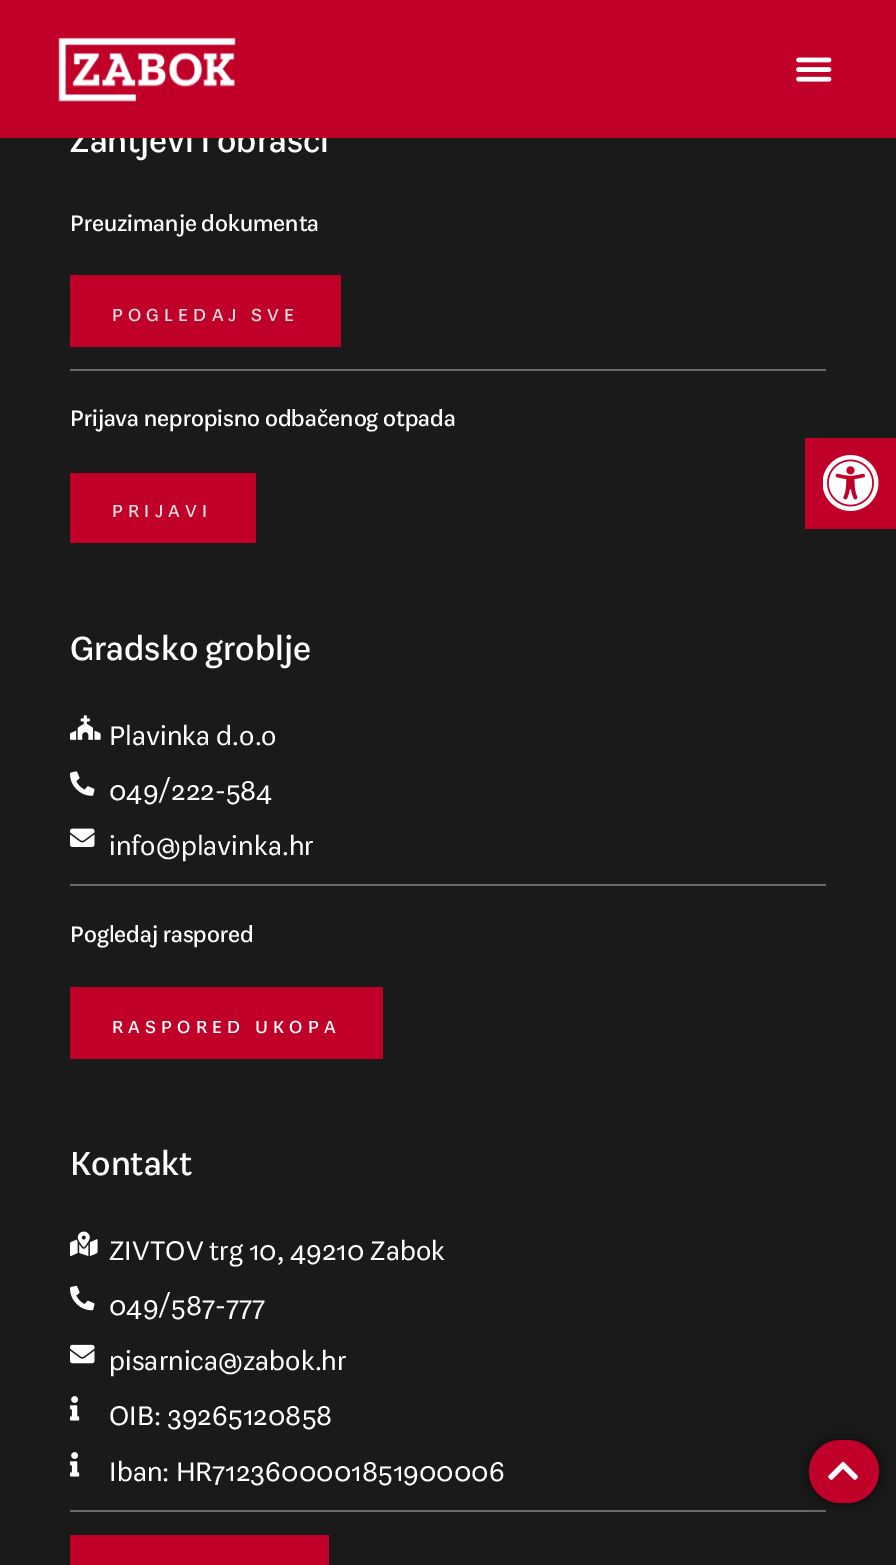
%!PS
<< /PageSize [896 1565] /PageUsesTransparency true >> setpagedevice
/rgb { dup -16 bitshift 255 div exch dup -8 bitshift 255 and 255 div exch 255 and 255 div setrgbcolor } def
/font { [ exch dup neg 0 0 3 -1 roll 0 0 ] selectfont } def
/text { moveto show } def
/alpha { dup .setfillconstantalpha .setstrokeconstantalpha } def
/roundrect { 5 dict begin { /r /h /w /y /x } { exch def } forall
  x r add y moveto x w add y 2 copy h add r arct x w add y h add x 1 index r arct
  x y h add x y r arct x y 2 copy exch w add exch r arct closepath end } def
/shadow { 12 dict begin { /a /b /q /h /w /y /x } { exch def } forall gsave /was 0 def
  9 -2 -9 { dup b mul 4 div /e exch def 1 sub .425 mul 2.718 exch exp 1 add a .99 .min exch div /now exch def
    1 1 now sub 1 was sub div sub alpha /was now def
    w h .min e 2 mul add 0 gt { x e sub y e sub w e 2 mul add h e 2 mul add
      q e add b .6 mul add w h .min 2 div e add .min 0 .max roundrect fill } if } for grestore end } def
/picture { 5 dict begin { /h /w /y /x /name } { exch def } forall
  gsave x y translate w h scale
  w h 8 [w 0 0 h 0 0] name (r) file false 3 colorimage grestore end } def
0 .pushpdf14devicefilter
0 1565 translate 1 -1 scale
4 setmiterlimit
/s1 { /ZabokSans-Medium 36.75 font 16#FFFFFF rgb } def
/s2 { /ZabokSans-Medium 24.5 font 16#FFFFFF rgb } def
/s3 { /ZabokSans-Regular 29.75 font 16#FFFFFF rgb } def
16#1A1A1A rgb
0 0 896 1565 rectfill
s1
(Zahtjevi i obrasci) 70 152 text
16#C10029 rgb
0 0 896 138 rectfill
(pic1.raw) 58 37 178 65 picture
(pic2.raw) 796 57 36 25 picture
16#6A6A6A rgb
70 1510 756 2 rectfill
16#000000 rgb
809 1440 70 63 31.5 9 0.5 shadow
16#C10029 rgb
809 1440 70 63 31.5 roundrect fill
(pic3.raw) 828 1461 30 19 picture
s2
(Preuzimanje dokumenta) 70 231 text
16#C10029 rgb
70 275 271 72 rectfill
/ZabokSans-Medium 19.25 font
16#DEDEDE rgb
112 321 moveto 5.25 0 (POGLEDAJ SVE) ashow
16#6A6A6A rgb
70 369 756 2 rectfill
s2
(Prijava nepropisno odbačenog otpada) 70 426 text
16#C10029 rgb
70 473 186 70 rectfill
/ZabokSans-Medium 19.25 font
16#DEDEDE rgb
112 517 moveto 5.25 0 (PRIJAVI) ashow
s1
(Gradsko groblje) 70 660 text
(pic4.raw) 70 715 31 25 picture
s3
(Plavinka d.o.o) 109 745 text
(pic5.raw) 70 771 25 25 picture
(049/222-584) 109 800 text
(pic6.raw) 70 828 25 19 picture
(info@plavinka.hr) 109 855 text
16#6A6A6A rgb
70 884 756 2 rectfill
s2
(Pogledaj raspored) 70 942 text
16#C10029 rgb
70 987 313 72 rectfill
/ZabokSans-Medium 19.25 font
16#FFFFFF rgb
112 1033 moveto 5.25 0 (RASPORED UKOPA) ashow
s1
(Kontakt) 70 1175 text
(pic7.raw) 70 1231 28 25 picture
s3
(ZIVTOV trg 10, 49210 Zabok) 109 1260 text
(pic8.raw) 70 1285 25 26 picture
(049/587-777) 109 1315 text
(pic9.raw) 70 1344 25 20 picture
(pisarnica@zabok.hr) 109 1370 text
(pic10.raw) 70 1396 10 25 picture
(OIB: 39265120858) 109 1425 text
(pic10.raw) 70 1452 10 25 picture
(Iban: HR7123600001851900006) 109 1481 text
16#C10029 rgb
70 1535 259 30 rectfill
805 438 91 91 rectfill
(pic11.raw) 823 455 56 56 picture
.poppdf14devicefilter showpage
